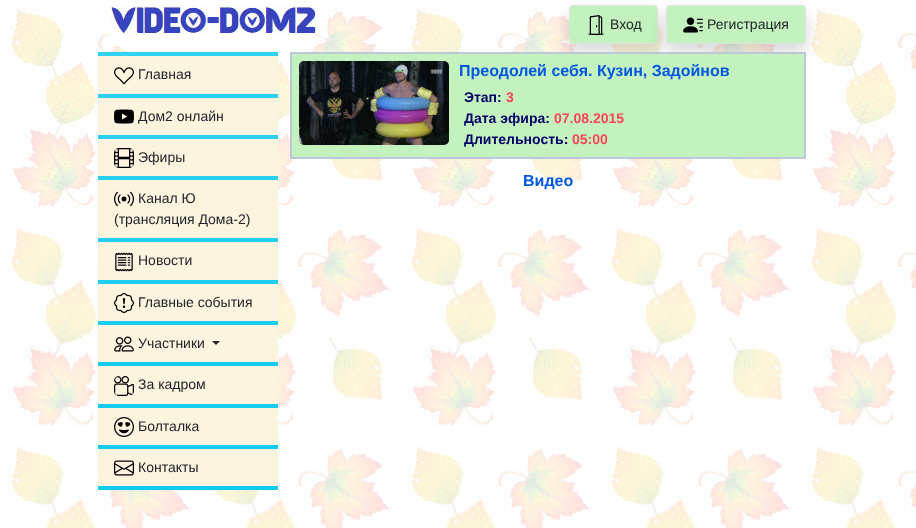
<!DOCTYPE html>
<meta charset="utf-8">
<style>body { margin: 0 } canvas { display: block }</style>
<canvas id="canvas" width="916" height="528"></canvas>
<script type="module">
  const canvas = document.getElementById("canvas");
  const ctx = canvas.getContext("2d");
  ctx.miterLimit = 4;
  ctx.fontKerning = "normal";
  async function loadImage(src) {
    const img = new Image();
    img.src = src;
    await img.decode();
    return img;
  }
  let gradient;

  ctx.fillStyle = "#ffffff";
  ctx.fillRect(0, 0, 916, 528);
  ctx.drawImage(await loadImage("img1.png"), 8, 8, 908, 520);
  ctx.beginPath();
  ctx.roundRect(110, 5, 206, 47, 23.5);
  ctx.fill();
  ctx.drawImage(await loadImage("img2.png"), 110, 5, 206, 30);
  ctx.fillStyle = "rgba(0, 0, 0, 0.15)";
  ctx.filter = "blur(8px)";
  ctx.beginPath();
  ctx.roundRect(569, 13, 89, 39, 4);
  ctx.fill();
  ctx.filter = "none";
  ctx.beginPath();
  ctx.roundRect(569.5, 5.5, 88, 38, 3.5);
  ctx.strokeStyle = "#dee2e6";
  ctx.stroke();
  ctx.fillStyle = "#c4f2bf";
  ctx.fillRect(570, 6, 87, 37);
  ctx.drawImage(await loadImage("img3.png"), 587, 15, 18, 20);
  ctx.font = "14px Liberation Sans";
  ctx.fillStyle = "#212529";
  ctx.fillText("Вход", 610, 29);
  ctx.fillStyle = "rgba(0, 0, 0, 0.15)";
  ctx.filter = "blur(8px)";
  ctx.beginPath();
  ctx.roundRect(666, 13, 140, 39, 4);
  ctx.fill();
  ctx.filter = "none";
  ctx.beginPath();
  ctx.roundRect(666.5, 5.5, 139, 38, 3.5);
  ctx.stroke();
  ctx.fillStyle = "#c4f2bf";
  ctx.fillRect(667, 6, 138, 37);
  ctx.drawImage(await loadImage("img4.png"), 683, 17, 20, 16);
  ctx.fillStyle = "#212529";
  ctx.fillText("Регистрация", 707, 29);
  gradient = ctx.createLinearGradient(188, 52, 188, 490);
  gradient.addColorStop(0, "#31d2f2");
  gradient.addColorStop(1, "#0dcaf0");
  ctx.fillStyle = gradient;
  ctx.fillRect(98, 52, 180, 438);
  ctx.fillStyle = "#fdf4e0";
  ctx.fillRect(98, 56, 180, 38);
  ctx.drawImage(await loadImage("img5.png"), 114, 67, 20, 18);
  ctx.fillStyle = "#212529";
  ctx.fillText("Главная", 138, 79);
  ctx.fillStyle = "#fdf4e0";
  ctx.fillRect(98, 98, 180, 37);
  ctx.drawImage(await loadImage("img6.png"), 114, 109, 20, 15);
  ctx.fillStyle = "#212529";
  ctx.fillText("Дом2 онлайн", 138, 121);
  ctx.fillStyle = "#fdf4e0";
  ctx.fillRect(98, 139, 180, 37);
  ctx.drawImage(await loadImage("img7.png"), 114, 148, 20, 20);
  ctx.fillStyle = "#212529";
  ctx.fillText("Эфиры", 138, 162);
  ctx.fillStyle = "#fdf4e0";
  ctx.fillRect(98, 180, 180, 58);
  ctx.drawImage(await loadImage("img8.png"), 114, 191, 20, 16);
  ctx.fillStyle = "#212529";
  ctx.fillText("Канал Ю", 138, 203);
  ctx.fillText("(трансляция Дома-2)", 114, 224);
  ctx.fillStyle = "#fdf4e0";
  ctx.fillRect(98, 242, 180, 38);
  ctx.drawImage(await loadImage("img9.png"), 115, 252, 18, 20);
  ctx.fillStyle = "#212529";
  ctx.fillText("Новости", 138, 265);
  ctx.fillStyle = "#fdf4e0";
  ctx.fillRect(98, 284, 180, 37);
  ctx.drawImage(await loadImage("img10.png"), 114, 293, 20, 20);
  ctx.fillStyle = "#212529";
  ctx.fillText("Главные события", 138, 307);
  ctx.fillStyle = "#fdf4e0";
  ctx.fillRect(98, 325, 180, 37);
  ctx.drawImage(await loadImage("img11.png"), 114, 336, 20, 16);
  ctx.fillStyle = "#212529";
  ctx.fillText("Участники", 138, 348);
  ctx.beginPath();
  ctx.moveTo(212, 341);
  ctx.lineTo(220, 341);
  ctx.lineTo(216, 345);
  ctx.closePath();
  ctx.fill();
  ctx.fillStyle = "#fdf4e0";
  ctx.fillRect(98, 366, 180, 38);
  ctx.drawImage(await loadImage("img12.png"), 114, 376, 20, 20);
  ctx.fillStyle = "#212529";
  ctx.fillText("За кадром", 138, 389);
  ctx.fillStyle = "#fdf4e0";
  ctx.fillRect(98, 408, 180, 37);
  ctx.drawImage(await loadImage("img13.png"), 114, 417, 20, 20);
  ctx.fillStyle = "#212529";
  ctx.fillText("Болталка", 138, 431);
  ctx.fillStyle = "#fdf4e0";
  ctx.fillRect(98, 449, 180, 37);
  ctx.drawImage(await loadImage("img14.png"), 114, 460, 20, 16);
  ctx.fillStyle = "#212529";
  ctx.fillText("Контакты", 138, 472);
  ctx.fillStyle = "#c4f2bf";
  ctx.beginPath();
  ctx.rect(291, 53, 514, 105);
  ctx.fill();
  ctx.strokeStyle = "#bcc7da";
  ctx.lineWidth = 2;
  ctx.stroke();
  ctx.drawImage(await loadImage("img15.png"), 299, 61, 150, 84);
  ctx.font = "bold 16px Liberation Sans";
  ctx.fillStyle = "#0457e2";
  ctx.fillText("Преодолей себя. Кузин, Задойнов", 459, 76);
  ctx.font = "bold 14px Liberation Sans";
  ctx.fillStyle = "#000066";
  ctx.fillText("Этап:", 464, 102);
  ctx.fillStyle = "#fa4455";
  ctx.fillText("3", 506, 102);
  ctx.fillStyle = "#000066";
  ctx.fillText("Дата эфира:", 464, 123);
  ctx.fillStyle = "#fa4455";
  ctx.fillText("07.08.2015", 554, 123);
  ctx.fillStyle = "#000066";
  ctx.fillText("Длительность:", 464, 144);
  ctx.fillStyle = "#fa4455";
  ctx.fillText("05:00", 572, 144);
  ctx.font = "bold 16px Liberation Sans";
  ctx.fillStyle = "#0457e2";
  ctx.fillText("Видео", 523, 186);
</script>
